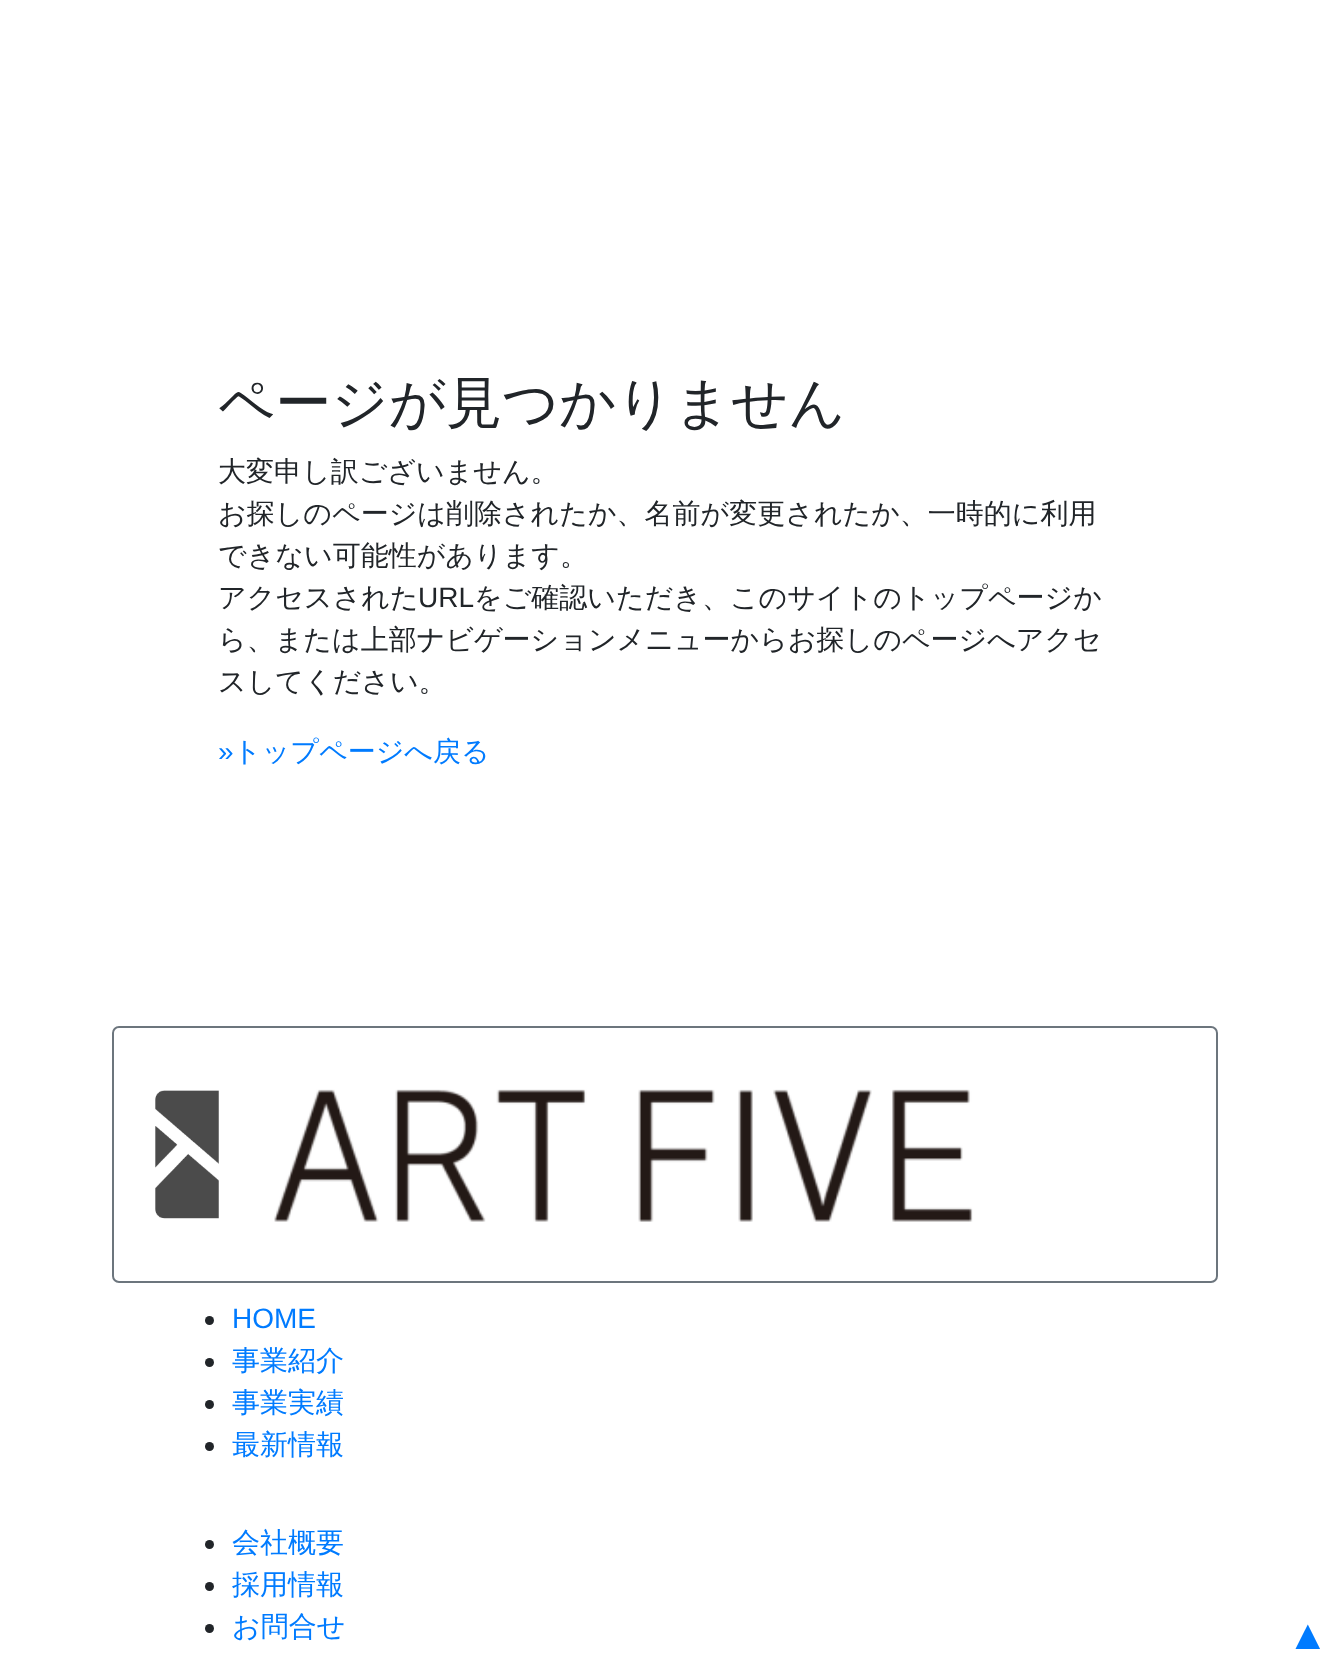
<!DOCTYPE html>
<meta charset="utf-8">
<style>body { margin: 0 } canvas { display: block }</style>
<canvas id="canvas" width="1327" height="1665"></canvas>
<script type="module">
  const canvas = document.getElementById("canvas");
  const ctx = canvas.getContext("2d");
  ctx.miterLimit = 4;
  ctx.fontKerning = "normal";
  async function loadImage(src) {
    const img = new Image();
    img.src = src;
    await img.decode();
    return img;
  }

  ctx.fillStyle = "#ffffff";
  ctx.fillRect(0, 0, 1327, 1665);
  ctx.font = "500 56px WenQuanYi Zen Hei";
  ctx.fillStyle = "#212529";
  ctx.fillText("ページが見つかりません", 218, 422);
  ctx.font = "500 28px WenQuanYi Zen Hei";
  ctx.fillText("大変申し訳ございません。", 218, 481);
  ctx.fillText("お探しのページは削除されたか、名前が変更されたか、一時的に利用", 218, 523);
  ctx.fillText("できない可能性があります。", 218, 565);
  ctx.fillText("アクセスされた", 218, 607);
  ctx.font = "28px Liberation Sans";
  ctx.fillText("URL", 418, 607);
  ctx.font = "500 28px WenQuanYi Zen Hei";
  ctx.fillText("をご確認いただき、このサイトのトップページか", 474, 607);
  ctx.fillText("ら、または上部ナビゲーションメニューからお探しのページへアクセ", 218, 649);
  ctx.fillText("スしてください。", 218, 691);
  ctx.font = "28px Liberation Sans";
  ctx.fillStyle = "#007bff";
  ctx.fillText("»", 218, 761);
  ctx.font = "500 28px WenQuanYi Zen Hei";
  ctx.fillText("トップページへ戻る", 233, 761);
  ctx.beginPath();
  ctx.roundRect(113, 1027, 1104, 255, 6);
  ctx.strokeStyle = "#6c757d";
  ctx.lineWidth = 2;
  ctx.stroke();
  ctx.drawImage(await loadImage("img1.png"), 155, 1090, 64, 129);
  ctx.drawImage(await loadImage("img2.png"), 218, 1089, 755, 133);
  ctx.fillStyle = "#212529";
  ctx.beginPath();
  ctx.arc(209.5, 1320.5, 4.5, 0, Math.PI * 2);
  ctx.fill();
  ctx.font = "28px Liberation Sans";
  ctx.fillStyle = "#007bff";
  ctx.fillText("HOME", 232, 1328);
  ctx.fillStyle = "#212529";
  ctx.beginPath();
  ctx.arc(209.5, 1362.5, 4.5, 0, Math.PI * 2);
  ctx.fill();
  ctx.font = "500 28px WenQuanYi Zen Hei";
  ctx.fillStyle = "#007bff";
  ctx.fillText("事業紹介", 232, 1370);
  ctx.fillStyle = "#212529";
  ctx.beginPath();
  ctx.arc(209.5, 1404.5, 4.5, 0, Math.PI * 2);
  ctx.fill();
  ctx.fillStyle = "#007bff";
  ctx.fillText("事業実績", 232, 1412);
  ctx.fillStyle = "#212529";
  ctx.beginPath();
  ctx.arc(209.5, 1446.5, 4.5, 0, Math.PI * 2);
  ctx.fill();
  ctx.fillStyle = "#007bff";
  ctx.fillText("最新情報", 232, 1454);
  ctx.fillStyle = "#212529";
  ctx.beginPath();
  ctx.arc(209.5, 1544.5, 4.5, 0, Math.PI * 2);
  ctx.fill();
  ctx.fillStyle = "#007bff";
  ctx.fillText("会社概要", 232, 1552);
  ctx.fillStyle = "#212529";
  ctx.beginPath();
  ctx.arc(209.5, 1586.5, 4.5, 0, Math.PI * 2);
  ctx.fill();
  ctx.fillStyle = "#007bff";
  ctx.fillText("採用情報", 232, 1594);
  ctx.fillStyle = "#212529";
  ctx.beginPath();
  ctx.arc(209.5, 1628.5, 4.5, 0, Math.PI * 2);
  ctx.fill();
  ctx.fillStyle = "#007bff";
  ctx.fillText("お問合せ", 232, 1636);
  ctx.font = "42px Liberation Sans";
  ctx.fillText("▲", 1287, 1649);
</script>
